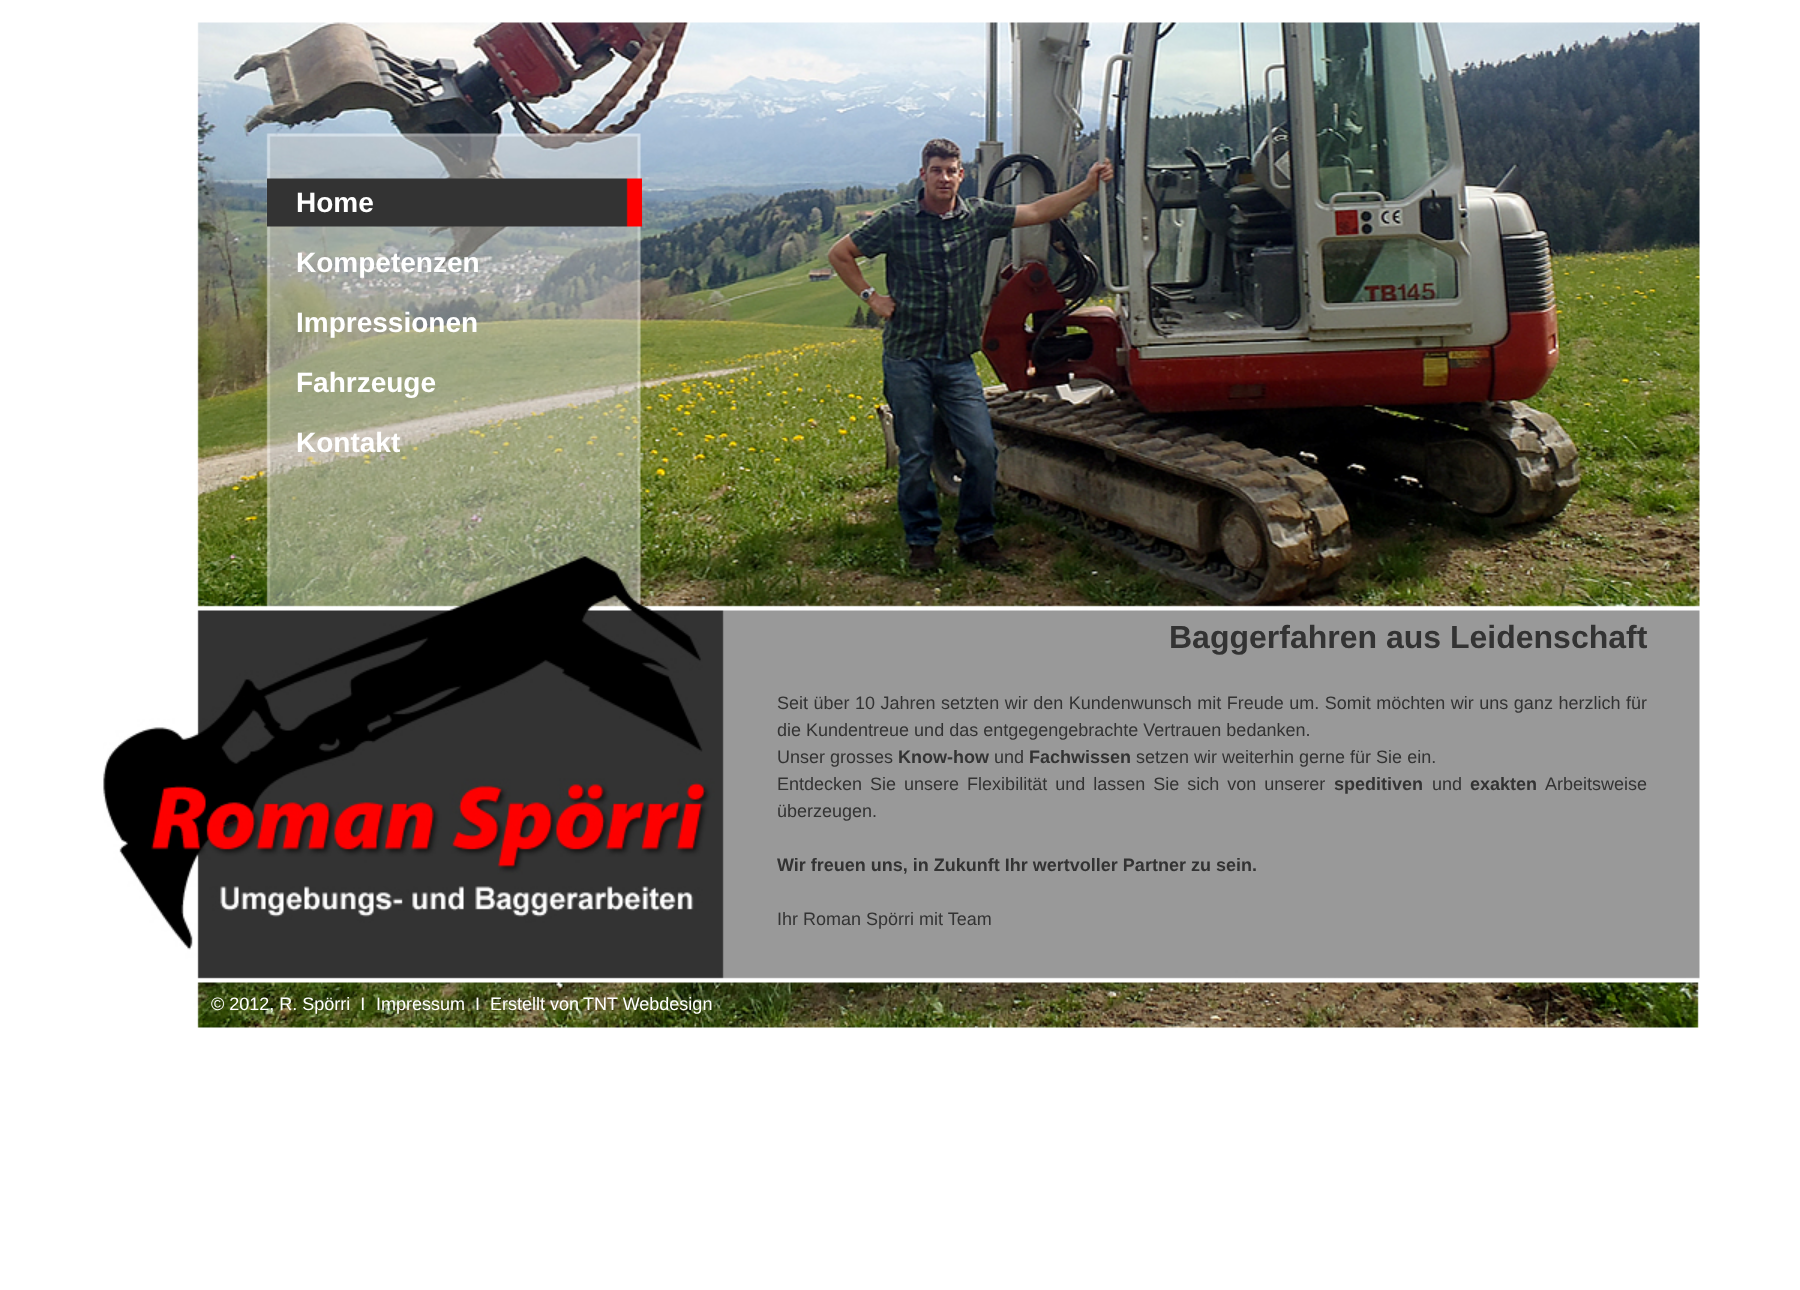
<!DOCTYPE html>
<meta charset="utf-8">
<style>body { margin: 0 } canvas { display: block }</style>
<canvas id="canvas" width="1800" height="1290"></canvas>
<script type="module">
  const canvas = document.getElementById("canvas");
  const ctx = canvas.getContext("2d");
  ctx.miterLimit = 4;
  ctx.fontKerning = "normal";
  async function loadImage(src) {
    const img = new Image();
    img.src = src;
    await img.decode();
    return img;
  }

  ctx.fillStyle = "#ffffff";
  ctx.fillRect(0, 0, 1800, 1290);
  ctx.drawImage(await loadImage("img1.png"), 103, 22, 1597, 1006);
  ctx.drawImage(await loadImage("img2.png"), 267, 178, 375, 49);
  ctx.font = "bold 28px Liberation Sans";
  ctx.fillText("Home", 296, 212);
  ctx.fillText("Kompetenzen", 296, 272);
  ctx.fillText("Impressionen", 296, 332);
  ctx.fillText("Fahrzeuge", 296, 392);
  ctx.fillText("Kontakt", 296, 452);
  ctx.font = "bold 32px Liberation Sans";
  ctx.fillStyle = "#333333";
  ctx.fillText("Baggerfahren aus Leidenschaft", 1169, 648);
  ctx.wordSpacing = "0.5px";
  ctx.font = "18px Liberation Sans";
  ctx.fillText("Seit über 10 Jahren setzten wir den Kundenwunsch mit Freude um. Somit möchten wir uns ganz herzlich für", 777, 709);
  ctx.wordSpacing = "0px";
  ctx.fillText("die Kundentreue und das entgegengebrachte Vertrauen bedanken.", 777, 736);
  ctx.fillText("Unser grosses", 777, 763);
  ctx.font = "bold 18px Liberation Sans";
  ctx.fillText("Know-how", 898, 763);
  ctx.font = "18px Liberation Sans";
  ctx.fillText("und", 994, 763);
  ctx.font = "bold 18px Liberation Sans";
  ctx.fillText("Fachwissen", 1029, 763);
  ctx.font = "18px Liberation Sans";
  ctx.fillText("setzen wir weiterhin gerne für Sie ein.", 1136, 763);
  ctx.wordSpacing = "3px";
  ctx.fillText("Entdecken Sie unsere Flexibilität und lassen Sie sich von unserer", 777, 790);
  ctx.wordSpacing = "0px";
  ctx.font = "bold 18px Liberation Sans";
  ctx.fillText("speditiven", 1334, 790);
  ctx.font = "18px Liberation Sans";
  ctx.fillText("und", 1432, 790);
  ctx.font = "bold 18px Liberation Sans";
  ctx.fillText("exakten", 1470, 790);
  ctx.font = "18px Liberation Sans";
  ctx.fillText("Arbeitsweise", 1545, 790);
  ctx.fillText("überzeugen.", 777, 817);
  ctx.font = "bold 18px Liberation Sans";
  ctx.fillText("Wir freuen uns, in Zukunft Ihr wertvoller Partner zu sein.", 777, 871);
  ctx.font = "18px Liberation Sans";
  ctx.fillText("Ihr Roman Spörri mit Team", 777, 925);
  ctx.fillStyle = "#ffffff";
  ctx.fillText("© 2012, R. Spörri  I", 211, 1010);
  ctx.fillText("Impressum", 376, 1010);
  ctx.fillText("I  Erstellt von", 475, 1010);
  ctx.fillText("TNT Webdesign", 583, 1010);
</script>
